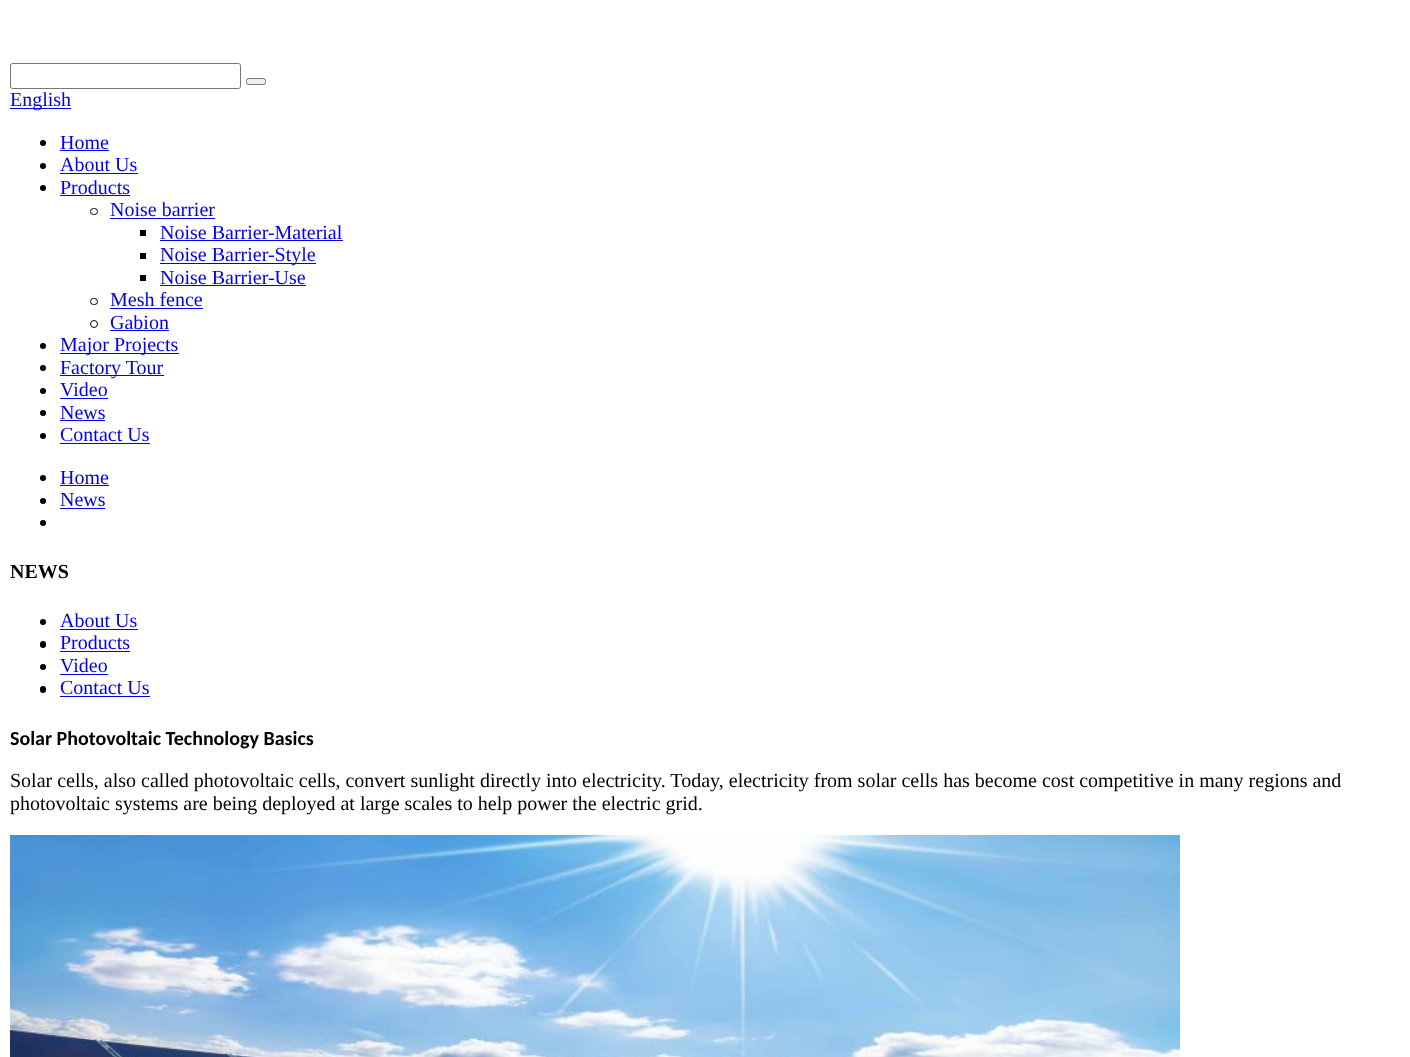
<!DOCTYPE html>
<meta charset="utf-8">
<style>body { margin: 0 } canvas { display: block }</style>
<canvas id="canvas" width="1410" height="1057"></canvas>
<script type="module">
  const canvas = document.getElementById("canvas");
  const ctx = canvas.getContext("2d");
  ctx.miterLimit = 4;
  ctx.fontKerning = "normal";
  async function loadImage(src) {
    const img = new Image();
    img.src = src;
    await img.decode();
    return img;
  }

  ctx.fillStyle = "#ffffff";
  ctx.fillRect(0, 0, 1410, 1057);
  ctx.beginPath();
  ctx.roundRect(10.5, 63.5, 230, 25, 2);
  ctx.strokeStyle = "#767676";
  ctx.stroke();
  ctx.fillStyle = "#efefef";
  ctx.beginPath();
  ctx.roundRect(246.5, 78.5, 19, 6, 2);
  ctx.fill();
  ctx.stroke();
  ctx.fillStyle = "#0000ee";
  ctx.fillRect(10, 108, 61, 1);
  ctx.font = "20px Liberation Serif";
  ctx.fillText("English", 10, 106);
  ctx.fillStyle = "#000000";
  ctx.beginPath();
  ctx.arc(43, 143, 3, 0, Math.PI * 2);
  ctx.fill();
  ctx.fillStyle = "#0000ee";
  ctx.fillText("Home", 60, 149);
  ctx.fillRect(60, 150, 49, 1);
  ctx.fillStyle = "#000000";
  ctx.beginPath();
  ctx.arc(43, 166, 3, 0, Math.PI * 2);
  ctx.fill();
  ctx.fillStyle = "#0000ee";
  ctx.fillText("About Us", 60, 171);
  ctx.fillRect(60, 173, 78, 1);
  ctx.fillStyle = "#000000";
  ctx.beginPath();
  ctx.arc(43, 188, 3, 0, Math.PI * 2);
  ctx.fill();
  ctx.fillStyle = "#0000ee";
  ctx.fillText("Products", 60, 194);
  ctx.fillRect(60, 195, 70, 1);
  ctx.beginPath();
  ctx.roundRect(90.5, 208.5, 7, 6, 3);
  ctx.strokeStyle = "#000000";
  ctx.stroke();
  ctx.fillText("Noise barrier", 110, 216);
  ctx.fillRect(110, 218, 105, 1);
  ctx.fillStyle = "#000000";
  ctx.fillRect(140, 230, 6, 6);
  ctx.fillStyle = "#0000ee";
  ctx.fillText("Noise Barrier-Material", 160, 239);
  ctx.fillRect(160, 240, 183, 1);
  ctx.fillStyle = "#000000";
  ctx.fillRect(140, 253, 6, 6);
  ctx.fillStyle = "#0000ee";
  ctx.fillRect(160, 263, 156, 1);
  ctx.fillText("Noise Barrier-Style", 160, 261);
  ctx.fillStyle = "#000000";
  ctx.fillRect(140, 275, 6, 6);
  ctx.fillStyle = "#0000ee";
  ctx.fillText("Noise Barrier-Use", 160, 284);
  ctx.fillRect(160, 285, 146, 1);
  ctx.beginPath();
  ctx.roundRect(90.5, 298.5, 7, 6, 3);
  ctx.stroke();
  ctx.fillText("Mesh fence", 110, 306);
  ctx.fillRect(110, 308, 93, 1);
  ctx.beginPath();
  ctx.arc(94, 324, 3.5, 0, Math.PI * 2);
  ctx.stroke();
  ctx.fillText("Gabion", 110, 329);
  ctx.fillRect(110, 330, 59, 1);
  ctx.fillStyle = "#000000";
  ctx.beginPath();
  ctx.arc(43, 346, 3, 0, Math.PI * 2);
  ctx.fill();
  ctx.fillStyle = "#0000ee";
  ctx.fillRect(60, 353, 119, 1);
  ctx.fillText("Major Projects", 60, 351);
  ctx.fillStyle = "#000000";
  ctx.beginPath();
  ctx.arc(43, 368, 3, 0, Math.PI * 2);
  ctx.fill();
  ctx.fillStyle = "#0000ee";
  ctx.fillRect(60, 375, 104, 1);
  ctx.fillText("Factory Tour", 60, 374);
  ctx.fillStyle = "#000000";
  ctx.beginPath();
  ctx.arc(43, 391, 3, 0, Math.PI * 2);
  ctx.fill();
  ctx.fillStyle = "#0000ee";
  ctx.fillText("Video", 60, 396);
  ctx.fillRect(60, 398, 48, 1);
  ctx.fillStyle = "#000000";
  ctx.beginPath();
  ctx.arc(43, 413, 3, 0, Math.PI * 2);
  ctx.fill();
  ctx.fillStyle = "#0000ee";
  ctx.fillText("News", 60, 419);
  ctx.fillRect(60, 420, 45, 1);
  ctx.fillStyle = "#000000";
  ctx.beginPath();
  ctx.arc(43, 436, 3, 0, Math.PI * 2);
  ctx.fill();
  ctx.fillStyle = "#0000ee";
  ctx.fillText("Contact Us", 60, 441);
  ctx.fillRect(60, 443, 90, 1);
  ctx.fillStyle = "#000000";
  ctx.beginPath();
  ctx.arc(43, 478, 3, 0, Math.PI * 2);
  ctx.fill();
  ctx.fillStyle = "#0000ee";
  ctx.fillText("Home", 60, 484);
  ctx.fillRect(60, 485, 49, 1);
  ctx.fillStyle = "#000000";
  ctx.beginPath();
  ctx.arc(43, 501, 3, 0, Math.PI * 2);
  ctx.fill();
  ctx.fillStyle = "#0000ee";
  ctx.fillText("News", 60, 506);
  ctx.fillRect(60, 508, 45, 1);
  ctx.fillStyle = "#000000";
  ctx.beginPath();
  ctx.arc(43, 523, 3, 0, Math.PI * 2);
  ctx.fill();
  ctx.font = "bold 20px Liberation Serif";
  ctx.fillText("NEWS", 10, 578);
  ctx.beginPath();
  ctx.arc(43, 622, 3, 0, Math.PI * 2);
  ctx.fill();
  ctx.font = "20px Liberation Serif";
  ctx.fillStyle = "#0000ee";
  ctx.fillText("About Us", 60, 627);
  ctx.fillRect(60, 629, 78, 1);
  ctx.fillStyle = "#000000";
  ctx.beginPath();
  ctx.roundRect(40, 641, 6, 7, 3);
  ctx.fill();
  ctx.fillStyle = "#0000ee";
  ctx.fillText("Products", 60, 649);
  ctx.fillRect(60, 651, 70, 1);
  ctx.fillStyle = "#000000";
  ctx.beginPath();
  ctx.arc(43, 667, 3, 0, Math.PI * 2);
  ctx.fill();
  ctx.fillStyle = "#0000ee";
  ctx.fillText("Video", 60, 672);
  ctx.fillRect(60, 674, 48, 1);
  ctx.fillStyle = "#000000";
  ctx.beginPath();
  ctx.roundRect(40, 686, 6, 7, 3);
  ctx.fill();
  ctx.fillStyle = "#0000ee";
  ctx.fillText("Contact Us", 60, 694);
  ctx.fillRect(60, 696, 90, 1);
  ctx.font = "bold 20px Carlito";
  ctx.fillStyle = "#000000";
  ctx.fillText("Solar Photovoltaic Technology Basics", 10, 745);
  ctx.font = "20px Liberation Serif";
  ctx.fillText("Solar cells, also called photovoltaic cells, convert sunlight directly into electricity. Today, electricity from solar cells has become cost competitive in many regions and", 10, 787);
  ctx.fillText("photovoltaic systems are being deployed at large scales to help power the electric grid.", 10, 810);
  ctx.drawImage(await loadImage("img1.png"), 10, 835, 1170, 222);
</script>
